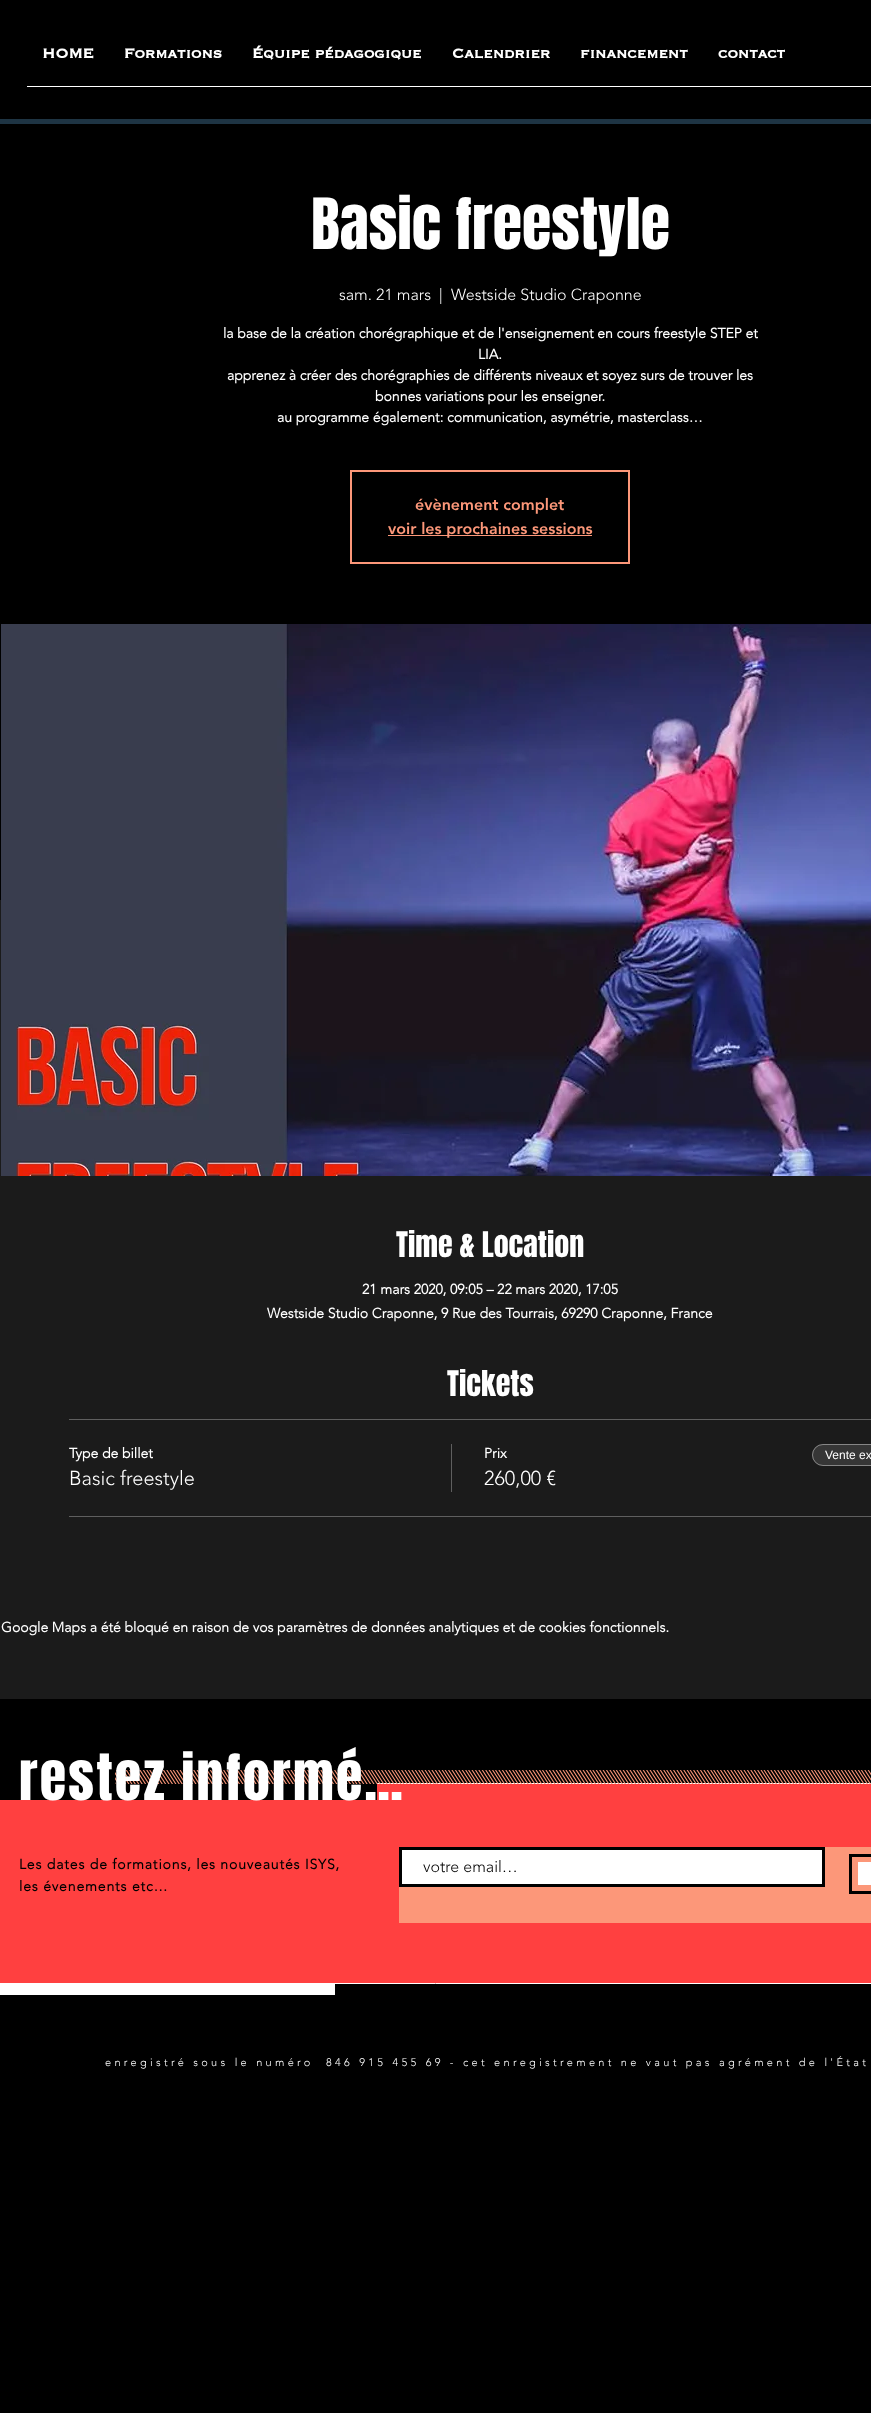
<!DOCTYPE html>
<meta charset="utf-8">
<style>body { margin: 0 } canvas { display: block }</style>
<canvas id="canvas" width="871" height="2413"></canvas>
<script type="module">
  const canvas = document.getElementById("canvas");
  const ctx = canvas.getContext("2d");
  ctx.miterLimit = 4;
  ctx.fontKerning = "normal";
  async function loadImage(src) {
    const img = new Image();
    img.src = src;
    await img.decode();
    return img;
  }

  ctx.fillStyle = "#000000";
  ctx.fillRect(0, 0, 871, 2413);
  ctx.font = "bold 17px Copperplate";
  ctx.fillStyle = "#ffffff";
  ctx.fillText("HOME", 42, 58);
  ctx.fillText("Formations", 124, 58);
  ctx.fillText("Équipe pédagogique", 252, 58);
  ctx.fillText("Calendrier", 452, 58);
  ctx.fillText("financement", 580, 58);
  ctx.fillText("contact", 718, 58);
  ctx.fillRect(27, 86, 844, 1);
  ctx.fillStyle = "#1e3443";
  ctx.fillRect(0, 119, 871, 5);
  ctx.font = "60px Anton";
  ctx.fillStyle = "#ffffff";
  ctx.fillText("Basic freestyle", 311, 249);
  ctx.font = "300 16px 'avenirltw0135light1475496'";
  ctx.fillText("sam. 21 mars", 339, 300);
  ctx.fillText("|", 439, 300);
  ctx.fillText("Westside Studio Craponne", 451, 300);
  ctx.font = "bold 14px 'avenirltw0135light1475496'";
  ctx.fillText("la base de la création chorégraphique et de l'enseignement en cours freestyle STEP et", 223, 338);
  ctx.fillText("LIA.", 478, 359);
  ctx.fillText("apprenez à créer des chorégraphies de différents niveaux et soyez surs de trouver les", 227, 380);
  ctx.fillText("bonnes variations pour les enseigner.", 375, 401);
  ctx.fillText("au programme également: communication, asymétrie, masterclass…", 277, 422);
  ctx.strokeStyle = "#fc9779";
  ctx.lineWidth = 2;
  ctx.strokeRect(351, 471, 278, 92);
  ctx.font = "900 16px 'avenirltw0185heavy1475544'";
  ctx.fillStyle = "#fc9779";
  ctx.fillText("évènement complet", 415, 510);
  ctx.fillRect(388, 535, 204, 1);
  ctx.fillText("voir les prochaines sessions", 388, 534);
  ctx.fillStyle = "#1b1b1b";
  ctx.fillRect(0, 900, 871, 799);
  ctx.drawImage(await loadImage("img1.png"), 1, 624, 870, 552);
  ctx.font = "30px Anton";
  ctx.fillStyle = "#ffffff";
  ctx.fillText("Time & Location", 396, 1257);
  ctx.font = "bold 14px 'avenirltw0135light1475496'";
  ctx.fillText("21 mars 2020, 09:05 – 22 mars 2020, 17:05", 362, 1294);
  ctx.fillText("Westside Studio Craponne, 9 Rue des Tourrais, 69290 Craponne, France", 267, 1318);
  ctx.font = "30px Anton";
  ctx.fillText("Tickets", 447, 1396);
  ctx.fillStyle = "#5f5f5f";
  ctx.fillRect(69, 1419, 802, 1);
  ctx.fillRect(69, 1516, 802, 1);
  ctx.font = "bold 14px 'avenirltw0135light1475496'";
  ctx.fillStyle = "#ffffff";
  ctx.fillText("Type de billet", 69, 1458);
  ctx.font = "300 20px 'avenirltw0135light1475496'";
  ctx.fillText("Basic freestyle", 69, 1485);
  ctx.fillStyle = "#5f5f5f";
  ctx.fillRect(451, 1444, 1, 48);
  ctx.font = "bold 14px 'avenirltw0135light1475496'";
  ctx.fillStyle = "#ffffff";
  ctx.fillText("Prix", 484, 1458);
  ctx.font = "300 20px 'avenirltw0135light1475496'";
  ctx.fillText("260,00 €", 484, 1485);
  ctx.fillStyle = "#363636";
  ctx.beginPath();
  ctx.roundRect(812, 1444, 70, 22, 11);
  ctx.fill();
  ctx.beginPath();
  ctx.roundRect(812.5, 1444.5, 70, 21, 10.5);
  ctx.strokeStyle = "rgba(255, 255, 255, 0.4)";
  ctx.lineWidth = 1;
  ctx.stroke();
  ctx.font = "12px Liberation Sans";
  ctx.fillStyle = "#ffffff";
  ctx.fillText("Vente ex", 825, 1459);
  ctx.font = "bold 14px 'avenirltw0135light1475496'";
  ctx.fillText("Google Maps a été bloqué en raison de vos paramètres de données analytiques et de cookies fonctionnels.", 1, 1632);
  ctx.fillStyle = "#ff4040";
  ctx.beginPath();
  ctx.rect(-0.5, 1783.5, 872, 200);
  ctx.fill();
  ctx.strokeStyle = "#ffffff";
  ctx.stroke();
  ctx.fillStyle = "#000000";
  ctx.fillRect(0, 1783, 377, 17);
  ctx.drawImage(await loadImage("img2.png"), 115, 1770, 756, 14);
  ctx.letterSpacing = "2.2px";
  ctx.font = "54px Anton";
  ctx.fillStyle = "#ffffff";
  ctx.fillText("restez informé…", 19, 1800);
  ctx.letterSpacing = "0.85px";
  ctx.font = "bold 14px 'avenirltw0135light1475496'";
  ctx.fillStyle = "#000000";
  ctx.fillText("Les dates de formations, les nouveautés ISYS,", 19, 1869);
  ctx.fillText("les évenements etc…", 19, 1891);
  ctx.fillStyle = "#fc9779";
  ctx.fillRect(399, 1847, 472, 76);
  ctx.fillStyle = "#ffffff";
  ctx.beginPath();
  ctx.rect(400.5, 1848.5, 423, 37);
  ctx.fill();
  ctx.strokeStyle = "#000000";
  ctx.lineWidth = 3;
  ctx.stroke();
  ctx.letterSpacing = "0px";
  ctx.font = "300 16px 'avenirltw0135light1475496'";
  ctx.fillStyle = "#000000";
  ctx.fillText("votre email…", 423, 1872);
  ctx.fillStyle = "#ffffff";
  ctx.fillRect(858, 1862, 13, 23);
  ctx.strokeRect(850.5, 1855.5, 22, 37);
  ctx.fillRect(0, 1984, 335, 11);
  ctx.letterSpacing = "3.3px";
  ctx.font = "300 11px 'avenirltw0135light1475496'";
  ctx.fillText("enregistré sous le numéro  846 915 455 69 - cet enregistrement ne vaut pas agrément de l'État", 105, 2066);
</script>
